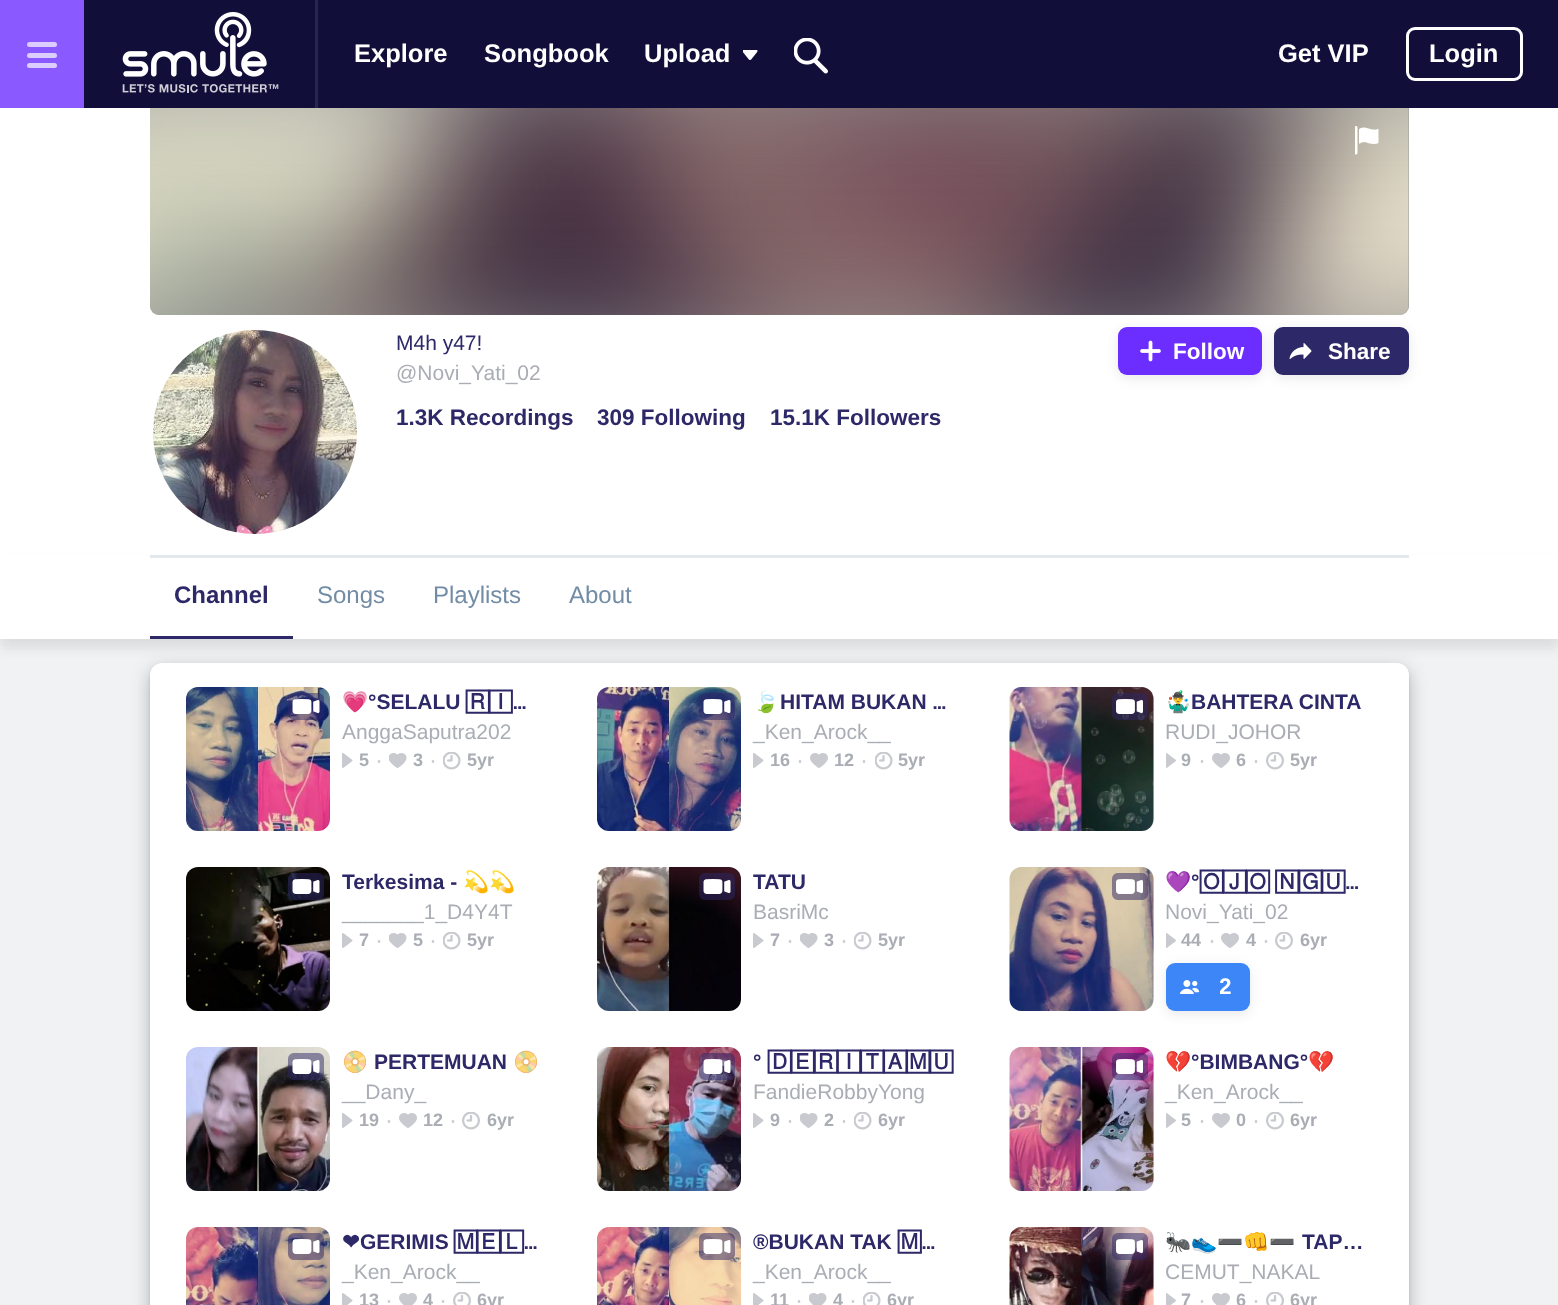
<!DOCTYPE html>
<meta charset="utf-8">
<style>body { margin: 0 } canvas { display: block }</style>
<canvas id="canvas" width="1558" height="1305"></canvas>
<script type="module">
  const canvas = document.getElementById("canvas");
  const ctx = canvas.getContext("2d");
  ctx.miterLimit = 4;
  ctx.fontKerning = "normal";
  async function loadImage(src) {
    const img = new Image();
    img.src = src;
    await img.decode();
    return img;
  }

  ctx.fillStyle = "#f0f2f4";
  ctx.fillRect(0, 0, 1558, 1305);
  ctx.fillStyle = "#110e39";
  ctx.fillRect(84, 0, 1474, 108);
  ctx.fillStyle = "#8a59ff";
  ctx.fillRect(0, 0, 84, 108);
  ctx.fillStyle = "#dccdff";
  ctx.beginPath();
  ctx.roundRect(27, 53, 30, 5, 2.5);
  ctx.fill();
  ctx.beginPath();
  ctx.roundRect(27, 42, 30, 5, 2.5);
  ctx.fill();
  ctx.beginPath();
  ctx.roundRect(27, 63, 30, 5, 2.5);
  ctx.fill();
  ctx.drawImage(await loadImage("img1.png"), 122, 12, 157, 81);
  ctx.fillStyle = "#29264d";
  ctx.fillRect(315, 0, 3, 108);
  ctx.font = "bold 25.5px Liberation Sans";
  ctx.fillStyle = "#ffffff";
  ctx.fillText("Explore", 354, 62);
  ctx.fillText("Songbook", 484, 62);
  ctx.fillText("Upload", 644, 62);
  ctx.drawImage(await loadImage("img2.png"), 743, 50, 15, 10);
  ctx.drawImage(await loadImage("img3.png"), 794, 38, 34, 36);
  ctx.fillText("Get VIP", 1278, 62);
  ctx.beginPath();
  ctx.roundRect(1407.5, 28.5, 114, 51, 7.5);
  ctx.strokeStyle = "#ffffff";
  ctx.lineWidth = 3;
  ctx.stroke();
  ctx.fillText("Login", 1429, 62);
  ctx.fillRect(0, 108, 1558, 447);
  ctx.fillStyle = "#999999";
  ctx.beginPath();
  ctx.roundRect(150, 108, 1259, 207, [0, 0, 9, 9]);
  ctx.fill();
  ctx.drawImage(await loadImage("img4.png"), 150, 108, 1259, 207);
  ctx.drawImage(await loadImage("img5.png"), 1355, 126, 24, 29);
  ctx.drawImage(await loadImage("img6.png"), 153, 330, 204, 204);
  ctx.font = "21px Liberation Sans";
  ctx.fillStyle = "#2d2867";
  ctx.fillText("M4h y47!", 396, 350);
  ctx.fillStyle = "#aaadb4";
  ctx.fillText("@Novi_Yati_02", 396, 380);
  ctx.font = "bold 22.5px Liberation Sans";
  ctx.fillStyle = "#2d2867";
  ctx.fillText("1.3K Recordings", 396, 425);
  ctx.fillText("309 Following", 597, 425);
  ctx.fillText("15.1K Followers", 770, 425);
  ctx.fillStyle = "rgba(31, 32, 33, 0.1)";
  ctx.filter = "blur(6px)";
  ctx.beginPath();
  ctx.roundRect(1118, 330, 144, 48, 9);
  ctx.fill();
  ctx.filter = "none";
  ctx.fillStyle = "#6c2eff";
  ctx.beginPath();
  ctx.roundRect(1118, 327, 144, 48, 9);
  ctx.fill();
  ctx.drawImage(await loadImage("img7.png"), 1140, 340, 21, 22);
  ctx.fillStyle = "#ffffff";
  ctx.fillText("Follow", 1173, 359);
  ctx.fillStyle = "rgba(31, 32, 33, 0.1)";
  ctx.filter = "blur(6px)";
  ctx.beginPath();
  ctx.roundRect(1274, 330, 135, 48, 9);
  ctx.fill();
  ctx.filter = "none";
  ctx.fillStyle = "#2d2867";
  ctx.beginPath();
  ctx.roundRect(1274, 327, 135, 48, 9);
  ctx.fill();
  ctx.drawImage(await loadImage("img8.png"), 1289, 343, 23, 16);
  ctx.fillStyle = "#ffffff";
  ctx.fillText("Share", 1328, 359);
  ctx.fillStyle = "rgba(31, 32, 33, 0.3)";
  ctx.filter = "blur(9px)";
  ctx.beginPath();
  ctx.roundRect(150, 669, 1259, 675, 12);
  ctx.fill();
  ctx.filter = "none";
  ctx.fillStyle = "rgba(31, 32, 33, 0.1)";
  ctx.filter = "blur(1.5px)";
  ctx.beginPath();
  ctx.roundRect(150, 665, 1259, 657, 12);
  ctx.fill();
  ctx.filter = "none";
  ctx.fillStyle = "#ffffff";
  ctx.beginPath();
  ctx.roundRect(150, 663, 1259, 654, 12);
  ctx.fill();
  ctx.fillStyle = "rgba(31, 32, 33, 0.1)";
  ctx.filter = "blur(6px)";
  ctx.beginPath();
  ctx.rect(0, 564, 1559, 84);
  ctx.fill();
  ctx.filter = "none";
  ctx.fillStyle = "#ffffff";
  ctx.fillRect(0, 555, 1558, 84);
  ctx.fillStyle = "#e4e9ee";
  ctx.fillRect(150, 555, 1259, 3);
  ctx.fillStyle = "#2d2867";
  ctx.fillRect(150, 636, 143, 3);
  ctx.font = "bold 24px Liberation Sans";
  ctx.fillText("Channel", 174, 603);
  ctx.font = "24px Liberation Sans";
  ctx.fillStyle = "#728ca6";
  ctx.fillText("Songs", 317, 603);
  ctx.fillText("Playlists", 433, 603);
  ctx.fillText("About", 569, 603);
  ctx.drawImage(await loadImage("img9.png"), 186, 687, 144, 144);
  ctx.drawImage(await loadImage("img10.png"), 288, 693, 36, 27);
  ctx.font = "bold 21px Noto Color Emoji";
  ctx.fillStyle = "#2d2867";
  ctx.fillText("💗", 342, 709);
  ctx.font = "bold 21px Liberation Sans";
  ctx.fillText("°SELALU", 368, 709);
  ctx.font = "bold 21px FreeSans";
  ctx.fillText("🅁🄸…", 466, 709);
  ctx.font = "21px Liberation Sans";
  ctx.fillStyle = "#aaadb4";
  ctx.fillText("AnggaSaputra202", 342, 739);
  ctx.drawImage(await loadImage("img11.png"), 342, 753, 11, 15);
  ctx.font = "bold 18px Liberation Sans";
  ctx.fillText("5", 359, 766);
  ctx.font = "24px Liberation Sans";
  ctx.fillStyle = "#c8cacf";
  ctx.fillText("·", 375, 768);
  ctx.drawImage(await loadImage("img12.png"), 389, 753, 18, 15);
  ctx.font = "bold 18px Liberation Sans";
  ctx.fillStyle = "#aaadb4";
  ctx.fillText("3", 413, 766);
  ctx.font = "24px Liberation Sans";
  ctx.fillStyle = "#c8cacf";
  ctx.fillText("·", 429, 768);
  ctx.drawImage(await loadImage("img13.png"), 443, 752, 18, 18);
  ctx.font = "bold 18px Liberation Sans";
  ctx.fillStyle = "#aaadb4";
  ctx.fillText("5yr", 467, 766);
  ctx.drawImage(await loadImage("img14.png"), 597, 687, 144, 144);
  ctx.drawImage(await loadImage("img15.png"), 699, 693, 36, 27);
  ctx.font = "bold 21px Noto Color Emoji";
  ctx.fillStyle = "#2d2867";
  ctx.fillText("🍃", 753, 709);
  ctx.font = "bold 21px Liberation Sans";
  ctx.fillText("HITAM BUKAN", 780, 709);
  ctx.font = "bold 21px FreeSans";
  ctx.fillText("…", 932, 709);
  ctx.font = "21px Liberation Sans";
  ctx.fillStyle = "#aaadb4";
  ctx.fillText("_Ken_Arock__", 753, 739);
  ctx.drawImage(await loadImage("img11.png"), 753, 753, 11, 15);
  ctx.font = "bold 18px Liberation Sans";
  ctx.fillText("16", 770, 766);
  ctx.font = "24px Liberation Sans";
  ctx.fillStyle = "#c8cacf";
  ctx.fillText("·", 796, 768);
  ctx.drawImage(await loadImage("img16.png"), 810, 753, 18, 15);
  ctx.font = "bold 18px Liberation Sans";
  ctx.fillStyle = "#aaadb4";
  ctx.fillText("12", 834, 766);
  ctx.font = "24px Liberation Sans";
  ctx.fillStyle = "#c8cacf";
  ctx.fillText("·", 860, 768);
  ctx.drawImage(await loadImage("img13.png"), 875, 752, 18, 18);
  ctx.font = "bold 18px Liberation Sans";
  ctx.fillStyle = "#aaadb4";
  ctx.fillText("5yr", 898, 766);
  ctx.fillStyle = "#f0f2f4";
  ctx.beginPath();
  ctx.roundRect(1010, 687, 144, 144, 12);
  ctx.fill();
  ctx.drawImage(await loadImage("img17.png"), 1009, 687, 145, 144);
  ctx.drawImage(await loadImage("img18.png"), 1112, 693, 36, 27);
  ctx.save();
  ctx.beginPath();
  ctx.rect(1166, 687, 202, 30);
  ctx.clip();
  ctx.font = "bold 21px Noto Color Emoji";
  ctx.fillStyle = "#2d2867";
  ctx.fillText("🤹‍♂️", 1165, 709);
  ctx.restore();
  ctx.font = "bold 21px Liberation Sans";
  ctx.fillStyle = "#2d2867";
  ctx.fillText("BAHTERA CINTA", 1191, 709);
  ctx.font = "21px Liberation Sans";
  ctx.fillStyle = "#aaadb4";
  ctx.fillText("RUDI_JOHOR", 1165, 739);
  ctx.drawImage(await loadImage("img19.png"), 1166, 753, 10, 15);
  ctx.font = "bold 18px Liberation Sans";
  ctx.fillText("9", 1181, 766);
  ctx.font = "24px Liberation Sans";
  ctx.fillStyle = "#c8cacf";
  ctx.fillText("·", 1198, 768);
  ctx.drawImage(await loadImage("img16.png"), 1212, 753, 18, 15);
  ctx.font = "bold 18px Liberation Sans";
  ctx.fillStyle = "#aaadb4";
  ctx.fillText("6", 1236, 766);
  ctx.font = "24px Liberation Sans";
  ctx.fillStyle = "#c8cacf";
  ctx.fillText("·", 1252, 768);
  ctx.drawImage(await loadImage("img20.png"), 1266, 752, 18, 18);
  ctx.font = "bold 18px Liberation Sans";
  ctx.fillStyle = "#aaadb4";
  ctx.fillText("5yr", 1290, 766);
  ctx.drawImage(await loadImage("img21.png"), 186, 867, 144, 144);
  ctx.drawImage(await loadImage("img22.png"), 288, 873, 36, 27);
  ctx.font = "bold 21px Liberation Sans";
  ctx.fillStyle = "#2d2867";
  ctx.fillText("Terkesima -", 342, 889);
  ctx.font = "bold 21px Noto Color Emoji";
  ctx.fillText("💫💫", 463, 889);
  ctx.font = "21px Liberation Sans";
  ctx.fillStyle = "#aaadb4";
  ctx.fillText("_______1_D4Y4T", 342, 919);
  ctx.drawImage(await loadImage("img11.png"), 342, 933, 11, 15);
  ctx.font = "bold 18px Liberation Sans";
  ctx.fillText("7", 359, 946);
  ctx.font = "24px Liberation Sans";
  ctx.fillStyle = "#c8cacf";
  ctx.fillText("·", 375, 948);
  ctx.drawImage(await loadImage("img12.png"), 389, 933, 18, 15);
  ctx.font = "bold 18px Liberation Sans";
  ctx.fillStyle = "#aaadb4";
  ctx.fillText("5", 413, 946);
  ctx.font = "24px Liberation Sans";
  ctx.fillStyle = "#c8cacf";
  ctx.fillText("·", 429, 948);
  ctx.drawImage(await loadImage("img13.png"), 443, 932, 18, 18);
  ctx.font = "bold 18px Liberation Sans";
  ctx.fillStyle = "#aaadb4";
  ctx.fillText("5yr", 467, 946);
  ctx.drawImage(await loadImage("img23.png"), 597, 867, 144, 144);
  ctx.drawImage(await loadImage("img24.png"), 699, 873, 36, 27);
  ctx.font = "bold 21px Liberation Sans";
  ctx.fillStyle = "#2d2867";
  ctx.fillText("TATU", 753, 889);
  ctx.font = "21px Liberation Sans";
  ctx.fillStyle = "#aaadb4";
  ctx.fillText("BasriMc", 753, 919);
  ctx.drawImage(await loadImage("img11.png"), 753, 933, 11, 15);
  ctx.font = "bold 18px Liberation Sans";
  ctx.fillText("7", 770, 946);
  ctx.font = "24px Liberation Sans";
  ctx.fillStyle = "#c8cacf";
  ctx.fillText("·", 786, 948);
  ctx.drawImage(await loadImage("img12.png"), 800, 933, 18, 15);
  ctx.font = "bold 18px Liberation Sans";
  ctx.fillStyle = "#aaadb4";
  ctx.fillText("3", 824, 946);
  ctx.font = "24px Liberation Sans";
  ctx.fillStyle = "#c8cacf";
  ctx.fillText("·", 840, 948);
  ctx.drawImage(await loadImage("img13.png"), 854, 932, 18, 18);
  ctx.font = "bold 18px Liberation Sans";
  ctx.fillStyle = "#aaadb4";
  ctx.fillText("5yr", 878, 946);
  ctx.fillStyle = "#f0f2f4";
  ctx.beginPath();
  ctx.roundRect(1010, 867, 144, 144, 12);
  ctx.fill();
  ctx.drawImage(await loadImage("img25.png"), 1009, 867, 145, 144);
  ctx.drawImage(await loadImage("img26.png"), 1112, 873, 36, 27);
  ctx.save();
  ctx.beginPath();
  ctx.rect(1166, 867, 202, 30);
  ctx.clip();
  ctx.font = "bold 21px Noto Color Emoji";
  ctx.fillStyle = "#2d2867";
  ctx.fillText("💜", 1165, 889);
  ctx.restore();
  ctx.font = "bold 21px Liberation Sans";
  ctx.fillStyle = "#2d2867";
  ctx.fillText("°", 1191, 889);
  ctx.wordSpacing = "1px";
  ctx.font = "bold 21px FreeSans";
  ctx.fillText("🄾🄹🄾 🄽🄶🅄…", 1200, 889);
  ctx.wordSpacing = "0px";
  ctx.font = "21px Liberation Sans";
  ctx.fillStyle = "#aaadb4";
  ctx.fillText("Novi_Yati_02", 1165, 919);
  ctx.drawImage(await loadImage("img19.png"), 1166, 933, 10, 15);
  ctx.font = "bold 18px Liberation Sans";
  ctx.fillText("44", 1181, 946);
  ctx.font = "24px Liberation Sans";
  ctx.fillStyle = "#c8cacf";
  ctx.fillText("·", 1208, 948);
  ctx.drawImage(await loadImage("img16.png"), 1221, 933, 18, 15);
  ctx.font = "bold 18px Liberation Sans";
  ctx.fillStyle = "#aaadb4";
  ctx.fillText("4", 1246, 946);
  ctx.font = "24px Liberation Sans";
  ctx.fillStyle = "#c8cacf";
  ctx.fillText("·", 1262, 948);
  ctx.drawImage(await loadImage("img20.png"), 1275, 932, 18, 18);
  ctx.font = "bold 18px Liberation Sans";
  ctx.fillStyle = "#aaadb4";
  ctx.fillText("6yr", 1300, 946);
  ctx.fillStyle = "rgba(31, 32, 33, 0.1)";
  ctx.filter = "blur(6px)";
  ctx.beginPath();
  ctx.roundRect(1166, 966, 84, 48, 9);
  ctx.fill();
  ctx.filter = "none";
  ctx.fillStyle = "#3c86f7";
  ctx.beginPath();
  ctx.roundRect(1166, 963, 84, 48, 9);
  ctx.fill();
  ctx.drawImage(await loadImage("img27.png"), 1179, 980, 21, 14);
  ctx.save();
  ctx.beginPath();
  ctx.rect(1220, 969, 12, 36);
  ctx.clip();
  ctx.font = "bold 22.5px Liberation Sans";
  ctx.fillStyle = "#ffffff";
  ctx.fillText("2", 1219, 994);
  ctx.restore();
  ctx.drawImage(await loadImage("img28.png"), 186, 1047, 144, 144);
  ctx.drawImage(await loadImage("img29.png"), 288, 1053, 36, 27);
  ctx.font = "bold 21px Noto Color Emoji";
  ctx.fillStyle = "#2d2867";
  ctx.fillText("📀", 342, 1069);
  ctx.font = "bold 21px Liberation Sans";
  ctx.fillText("PERTEMUAN", 374, 1069);
  ctx.font = "bold 21px Noto Color Emoji";
  ctx.fillText("📀", 513, 1069);
  ctx.font = "21px Liberation Sans";
  ctx.fillStyle = "#aaadb4";
  ctx.fillText("__Dany_", 342, 1099);
  ctx.drawImage(await loadImage("img11.png"), 342, 1113, 11, 15);
  ctx.font = "bold 18px Liberation Sans";
  ctx.fillText("19", 359, 1126);
  ctx.font = "24px Liberation Sans";
  ctx.fillStyle = "#c8cacf";
  ctx.fillText("·", 385, 1128);
  ctx.drawImage(await loadImage("img16.png"), 399, 1113, 18, 15);
  ctx.font = "bold 18px Liberation Sans";
  ctx.fillStyle = "#aaadb4";
  ctx.fillText("12", 423, 1126);
  ctx.font = "24px Liberation Sans";
  ctx.fillStyle = "#c8cacf";
  ctx.fillText("·", 449, 1128);
  ctx.drawImage(await loadImage("img20.png"), 462, 1112, 18, 18);
  ctx.font = "bold 18px Liberation Sans";
  ctx.fillStyle = "#aaadb4";
  ctx.fillText("6yr", 487, 1126);
  ctx.drawImage(await loadImage("img30.png"), 597, 1047, 144, 144);
  ctx.drawImage(await loadImage("img31.png"), 699, 1053, 36, 27);
  ctx.font = "bold 21px Liberation Sans";
  ctx.fillStyle = "#2d2867";
  ctx.fillText("°", 753, 1069);
  ctx.font = "bold 21px FreeSans";
  ctx.fillText("🄳🄴🅁🄸🅃🄰🄼🅄", 768, 1069);
  ctx.font = "21px Liberation Sans";
  ctx.fillStyle = "#aaadb4";
  ctx.fillText("FandieRobbyYong", 753, 1099);
  ctx.drawImage(await loadImage("img11.png"), 753, 1113, 11, 15);
  ctx.font = "bold 18px Liberation Sans";
  ctx.fillText("9", 770, 1126);
  ctx.font = "24px Liberation Sans";
  ctx.fillStyle = "#c8cacf";
  ctx.fillText("·", 786, 1128);
  ctx.drawImage(await loadImage("img12.png"), 800, 1113, 18, 15);
  ctx.font = "bold 18px Liberation Sans";
  ctx.fillStyle = "#aaadb4";
  ctx.fillText("2", 824, 1126);
  ctx.font = "24px Liberation Sans";
  ctx.fillStyle = "#c8cacf";
  ctx.fillText("·", 840, 1128);
  ctx.drawImage(await loadImage("img13.png"), 854, 1112, 18, 18);
  ctx.font = "bold 18px Liberation Sans";
  ctx.fillStyle = "#aaadb4";
  ctx.fillText("6yr", 878, 1126);
  ctx.fillStyle = "#f0f2f4";
  ctx.beginPath();
  ctx.roundRect(1010, 1047, 144, 144, 12);
  ctx.fill();
  ctx.drawImage(await loadImage("img32.png"), 1009, 1047, 145, 144);
  ctx.drawImage(await loadImage("img33.png"), 1112, 1053, 36, 27);
  ctx.save();
  ctx.beginPath();
  ctx.rect(1166, 1047, 202, 30);
  ctx.clip();
  ctx.font = "bold 21px Noto Color Emoji";
  ctx.fillStyle = "#2d2867";
  ctx.fillText("💔", 1165, 1069);
  ctx.restore();
  ctx.font = "bold 21px Liberation Sans";
  ctx.fillStyle = "#2d2867";
  ctx.fillText("°BIMBANG°", 1191, 1069);
  ctx.font = "bold 21px Noto Color Emoji";
  ctx.fillText("💔", 1308, 1069);
  ctx.font = "21px Liberation Sans";
  ctx.fillStyle = "#aaadb4";
  ctx.fillText("_Ken_Arock__", 1165, 1099);
  ctx.drawImage(await loadImage("img19.png"), 1166, 1113, 10, 15);
  ctx.font = "bold 18px Liberation Sans";
  ctx.fillText("5", 1181, 1126);
  ctx.font = "24px Liberation Sans";
  ctx.fillStyle = "#c8cacf";
  ctx.fillText("·", 1198, 1128);
  ctx.drawImage(await loadImage("img16.png"), 1212, 1113, 18, 15);
  ctx.font = "bold 18px Liberation Sans";
  ctx.fillStyle = "#aaadb4";
  ctx.fillText("0", 1236, 1126);
  ctx.font = "24px Liberation Sans";
  ctx.fillStyle = "#c8cacf";
  ctx.fillText("·", 1252, 1128);
  ctx.drawImage(await loadImage("img20.png"), 1266, 1112, 18, 18);
  ctx.font = "bold 18px Liberation Sans";
  ctx.fillStyle = "#aaadb4";
  ctx.fillText("6yr", 1290, 1126);
  ctx.drawImage(await loadImage("img34.png"), 186, 1227, 144, 78);
  ctx.drawImage(await loadImage("img35.png"), 288, 1233, 36, 27);
  ctx.font = "bold 21px DejaVu Sans";
  ctx.fillStyle = "#2d2867";
  ctx.fillText("❤", 342, 1249);
  ctx.font = "bold 21px Liberation Sans";
  ctx.fillText("GERIMIS", 360, 1249);
  ctx.font = "bold 21px FreeSans";
  ctx.fillText("🄼🄴🄻…", 454, 1249);
  ctx.font = "21px Liberation Sans";
  ctx.fillStyle = "#aaadb4";
  ctx.fillText("_Ken_Arock__", 342, 1279);
  ctx.drawImage(await loadImage("img36.png"), 342, 1293, 11, 12);
  ctx.font = "bold 18px Liberation Sans";
  ctx.fillText("13", 359, 1306);
  ctx.font = "24px Liberation Sans";
  ctx.fillStyle = "#c8cacf";
  ctx.fillText("·", 385, 1308);
  ctx.drawImage(await loadImage("img37.png"), 399, 1293, 18, 12);
  ctx.font = "bold 18px Liberation Sans";
  ctx.fillStyle = "#aaadb4";
  ctx.fillText("4", 423, 1306);
  ctx.font = "24px Liberation Sans";
  ctx.fillStyle = "#c8cacf";
  ctx.fillText("·", 439, 1308);
  ctx.drawImage(await loadImage("img38.png"), 453, 1292, 18, 13);
  ctx.font = "bold 18px Liberation Sans";
  ctx.fillStyle = "#aaadb4";
  ctx.fillText("6yr", 477, 1306);
  ctx.drawImage(await loadImage("img39.png"), 597, 1227, 144, 78);
  ctx.drawImage(await loadImage("img40.png"), 699, 1233, 36, 27);
  ctx.font = "bold 21px Liberation Sans";
  ctx.fillStyle = "#2d2867";
  ctx.fillText("®BUKAN TAK", 753, 1249);
  ctx.font = "bold 21px FreeSans";
  ctx.fillText("🄼…", 898, 1249);
  ctx.font = "21px Liberation Sans";
  ctx.fillStyle = "#aaadb4";
  ctx.fillText("_Ken_Arock__", 753, 1279);
  ctx.drawImage(await loadImage("img36.png"), 753, 1293, 11, 12);
  ctx.font = "bold 18px Liberation Sans";
  ctx.fillText("11", 770, 1306);
  ctx.font = "24px Liberation Sans";
  ctx.fillStyle = "#c8cacf";
  ctx.fillText("·", 795, 1308);
  ctx.drawImage(await loadImage("img41.png"), 809, 1293, 18, 12);
  ctx.font = "bold 18px Liberation Sans";
  ctx.fillStyle = "#aaadb4";
  ctx.fillText("4", 833, 1306);
  ctx.font = "24px Liberation Sans";
  ctx.fillStyle = "#c8cacf";
  ctx.fillText("·", 849, 1308);
  ctx.drawImage(await loadImage("img42.png"), 863, 1292, 18, 13);
  ctx.font = "bold 18px Liberation Sans";
  ctx.fillStyle = "#aaadb4";
  ctx.fillText("6yr", 887, 1306);
  ctx.fillStyle = "#f0f2f4";
  ctx.beginPath();
  ctx.roundRect(1010, 1227, 144, 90, 12);
  ctx.fill();
  ctx.drawImage(await loadImage("img43.png"), 1009, 1227, 145, 78);
  ctx.drawImage(await loadImage("img44.png"), 1112, 1233, 36, 27);
  ctx.save();
  ctx.beginPath();
  ctx.rect(1166, 1227, 202, 30);
  ctx.clip();
  ctx.font = "bold 21px Noto Color Emoji";
  ctx.fillStyle = "#2d2867";
  ctx.fillText("🐜👟➖👊➖", 1165, 1249);
  ctx.restore();
  ctx.font = "bold 21px Liberation Sans";
  ctx.fillStyle = "#2d2867";
  ctx.fillText("TAP…", 1302, 1249);
  ctx.font = "21px Liberation Sans";
  ctx.fillStyle = "#aaadb4";
  ctx.fillText("CEMUT_NAKAL", 1165, 1279);
  ctx.drawImage(await loadImage("img45.png"), 1166, 1293, 10, 12);
  ctx.font = "bold 18px Liberation Sans";
  ctx.fillText("7", 1181, 1306);
  ctx.font = "24px Liberation Sans";
  ctx.fillStyle = "#c8cacf";
  ctx.fillText("·", 1198, 1308);
  ctx.drawImage(await loadImage("img37.png"), 1212, 1293, 18, 12);
  ctx.font = "bold 18px Liberation Sans";
  ctx.fillStyle = "#aaadb4";
  ctx.fillText("6", 1236, 1306);
  ctx.font = "24px Liberation Sans";
  ctx.fillStyle = "#c8cacf";
  ctx.fillText("·", 1252, 1308);
  ctx.drawImage(await loadImage("img38.png"), 1266, 1292, 18, 13);
  ctx.font = "bold 18px Liberation Sans";
  ctx.fillStyle = "#aaadb4";
  ctx.fillText("6yr", 1290, 1306);
</script>
